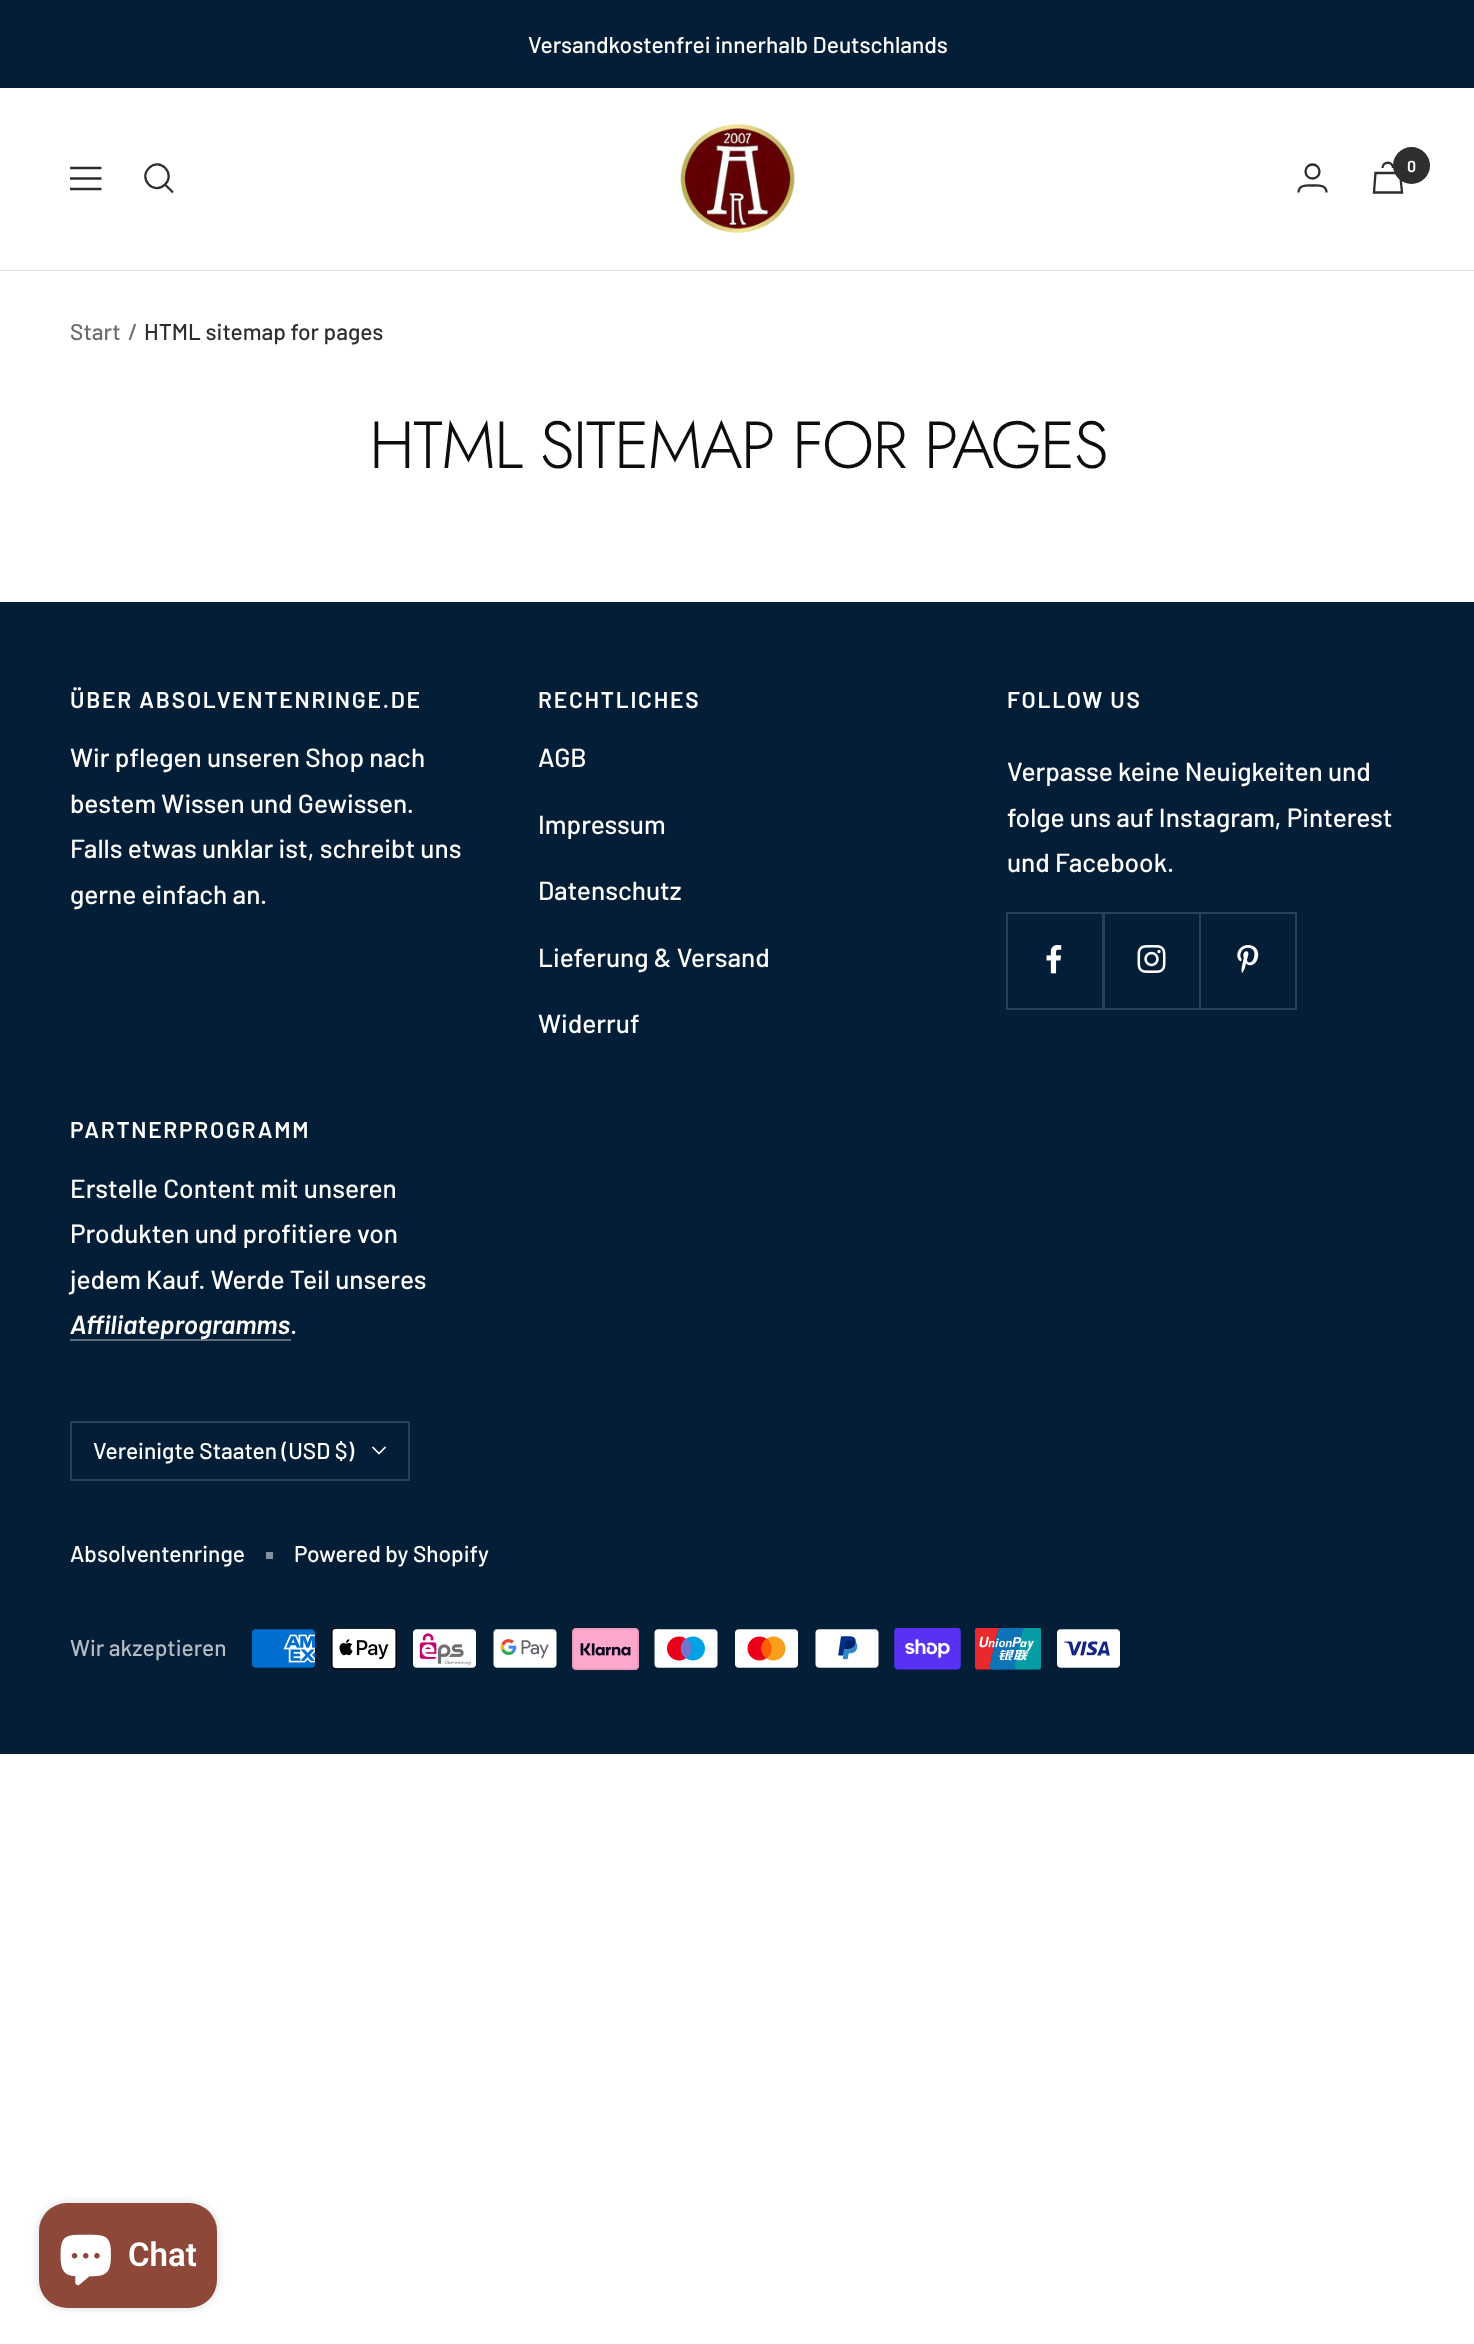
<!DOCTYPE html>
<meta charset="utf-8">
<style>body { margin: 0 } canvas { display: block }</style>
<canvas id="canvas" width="1474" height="2344"></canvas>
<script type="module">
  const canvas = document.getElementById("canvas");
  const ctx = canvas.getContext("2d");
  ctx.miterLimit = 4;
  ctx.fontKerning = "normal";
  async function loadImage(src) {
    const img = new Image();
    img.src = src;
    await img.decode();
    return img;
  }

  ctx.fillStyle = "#ffffff";
  ctx.fillRect(0, 0, 1474, 2344);
  ctx.fillStyle = "#051e38";
  ctx.fillRect(0, 0, 1474, 88);
  ctx.font = "500 22.75px Barlow";
  ctx.fillStyle = "#ffffff";
  ctx.fillText("Versandkostenfrei innerhalb Deutschlands", 528, 53);
  ctx.fillStyle = "#e0e0e0";
  ctx.fillRect(0, 270, 1474, 1);
  ctx.beginPath();
  ctx.moveTo(70, 168);
  ctx.lineTo(101.5, 168);
  ctx.moveTo(70, 189);
  ctx.lineTo(101.5, 189);
  ctx.closePath();
  ctx.moveTo(70, 178.5);
  ctx.lineTo(101.5, 178.5);
  ctx.closePath();
  ctx.strokeStyle = "#2e2e2e";
  ctx.lineWidth = 2.3;
  ctx.stroke();
  ctx.beginPath();
  ctx.moveTo(165, 184.5);
  ctx.bezierCurveTo(176, 173.5, 160, 157, 149, 168);
  ctx.bezierCurveTo(138, 179, 154, 195.5, 165, 184.5);
  ctx.closePath();
  ctx.moveTo(165, 184.5);
  ctx.lineTo(173, 192.5);
  ctx.stroke();
  ctx.drawImage(await loadImage("img1.png"), 680, 124, 115, 109);
  ctx.beginPath();
  ctx.arc(1312.5, 171.5, 7, 0, Math.PI * 2);
  ctx.stroke();
  ctx.beginPath();
  ctx.moveTo(1298.5, 192.5);
  ctx.bezierCurveTo(1298.5, 184.5, 1307, 185.5, 1312.5, 185.5);
  ctx.bezierCurveTo(1318, 185.5, 1326.5, 184.5, 1326.5, 192.5);
  ctx.stroke();
  ctx.beginPath();
  ctx.moveTo(1375.5, 173);
  ctx.lineTo(1400, 173);
  ctx.lineTo(1402, 192.5);
  ctx.lineTo(1374, 192.5);
  ctx.closePath();
  ctx.moveTo(1393, 168);
  ctx.bezierCurveTo(1393, 161, 1382.5, 161, 1382.5, 168);
  ctx.stroke();
  ctx.fillStyle = "#2e2e2e";
  ctx.beginPath();
  ctx.arc(1411.5, 165.5, 18.5, 0, Math.PI * 2);
  ctx.fill();
  ctx.font = "600 16px Barlow";
  ctx.fillStyle = "#ffffff";
  ctx.fillText("0", 1407, 172);
  ctx.font = "500 22.75px Barlow";
  ctx.fillStyle = "#6d6d6d";
  ctx.fillText("Start", 70, 340);
  ctx.fillText("/", 128, 340);
  ctx.fillStyle = "#2e2e2e";
  ctx.fillText("HTML sitemap for pages", 144, 340);
  ctx.letterSpacing = "-1.75px";
  ctx.font = "300 66.5px Jost";
  ctx.fillStyle = "#0d0d0d";
  ctx.fillText("HTML SITEMAP FOR PAGES", 369, 468);
  ctx.fillStyle = "#051e38";
  ctx.fillRect(0, 602, 1474, 1152);
  ctx.letterSpacing = "1.75px";
  ctx.font = "600 22.75px Barlow";
  ctx.fillStyle = "#ffffff";
  ctx.fillText("ÜBER ABSOLVENTENRINGE.DE", 70, 708);
  ctx.letterSpacing = "0px";
  ctx.font = "500 26.25px Barlow";
  ctx.fillText("Wir pflegen unseren Shop nach", 70, 767);
  ctx.fillText("bestem Wissen und Gewissen.", 70, 813);
  ctx.fillText("Falls etwas unklar ist, schreibt uns", 70, 858);
  ctx.fillText("gerne einfach an.", 70, 904);
  ctx.letterSpacing = "1.75px";
  ctx.font = "600 22.75px Barlow";
  ctx.fillText("RECHTLICHES", 538, 708);
  ctx.letterSpacing = "0px";
  ctx.font = "500 26.25px Barlow";
  ctx.fillText("AGB", 538, 767);
  ctx.fillText("Impressum", 538, 834);
  ctx.fillText("Datenschutz", 538, 900);
  ctx.fillText("Lieferung & Versand", 538, 967);
  ctx.fillText("Widerruf", 538, 1033);
  ctx.letterSpacing = "1.75px";
  ctx.font = "600 22.75px Barlow";
  ctx.fillText("FOLLOW US", 1007, 708);
  ctx.letterSpacing = "0px";
  ctx.font = "500 26.25px Barlow";
  ctx.fillText("Verpasse keine Neuigkeiten und", 1007, 781);
  ctx.fillText("folge uns auf Instagram, Pinterest", 1007, 827);
  ctx.fillText("und Facebook.", 1007, 872);
  ctx.fillStyle = "#2b4056";
  ctx.beginPath();
  ctx.moveTo(1008, 1008);
  ctx.lineTo(1008, 1010);
  ctx.lineTo(1104, 1010);
  ctx.lineTo(1104, 914);
  ctx.lineTo(1102, 914);
  ctx.lineTo(1102, 1008);
  ctx.closePath();
  ctx.fill();
  ctx.beginPath();
  ctx.moveTo(1006, 914);
  ctx.lineTo(1006, 1010);
  ctx.lineTo(1103, 1010);
  ctx.lineTo(1103, 914);
  ctx.lineTo(1102, 914);
  ctx.lineTo(1102, 1008);
  ctx.lineTo(1006, 1008);
  ctx.closePath();
  ctx.fill();
  ctx.fillRect(1006, 912, 97, 2);
  ctx.fillRect(1006, 912, 2, 96);
  ctx.drawImage(await loadImage("img2.png"), 1046, 945, 16, 29);
  ctx.beginPath();
  ctx.moveTo(1104, 1008);
  ctx.lineTo(1104, 1010);
  ctx.lineTo(1201, 1010);
  ctx.lineTo(1201, 914);
  ctx.lineTo(1199, 914);
  ctx.lineTo(1199, 1008);
  ctx.closePath();
  ctx.fill();
  ctx.fillRect(1103, 912, 98, 2);
  ctx.fillRect(1104, 912, 1, 96);
  ctx.drawImage(await loadImage("img3.png"), 1137, 945, 29, 28);
  ctx.beginPath();
  ctx.moveTo(1201, 1008);
  ctx.lineTo(1201, 1010);
  ctx.lineTo(1297, 1010);
  ctx.lineTo(1297, 914);
  ctx.lineTo(1295, 914);
  ctx.lineTo(1295, 1008);
  ctx.closePath();
  ctx.fill();
  ctx.fillRect(1199, 912, 98, 2);
  ctx.drawImage(await loadImage("img4.png"), 1237, 945, 22, 28);
  ctx.letterSpacing = "1.75px";
  ctx.font = "600 22.75px Barlow";
  ctx.fillStyle = "#ffffff";
  ctx.fillText("PARTNERPROGRAMM", 70, 1138);
  ctx.letterSpacing = "0px";
  ctx.font = "500 26.25px Barlow";
  ctx.fillText("Erstelle Content mit unseren", 70, 1198);
  ctx.fillText("Produkten und profitiere von", 70, 1243);
  ctx.fillText("jedem Kauf. Werde Teil unseres", 70, 1289);
  ctx.fillStyle = "#5d6d7e";
  ctx.fillRect(70, 1339, 221, 2);
  ctx.font = "italic 600 26.25px Barlow";
  ctx.fillStyle = "#ffffff";
  ctx.fillText("Affiliateprogramms", 70, 1334);
  ctx.font = "500 26.25px Barlow";
  ctx.fillText(".", 290, 1334);
  ctx.strokeStyle = "#2b4056";
  ctx.lineWidth = 2;
  ctx.strokeRect(71, 1422, 338, 58);
  ctx.font = "500 22.75px Barlow";
  ctx.fillText("Vereinigte Staaten (USD $)", 93, 1459);
  ctx.beginPath();
  ctx.moveTo(372.5, 1447);
  ctx.lineTo(379, 1453.5);
  ctx.lineTo(385.5, 1447);
  ctx.strokeStyle = "#ffffff";
  ctx.lineWidth = 1.7;
  ctx.stroke();
  ctx.fillText("Absolventenringe", 70, 1562);
  ctx.fillStyle = "#828f9c";
  ctx.fillRect(266, 1552, 7, 7);
  ctx.fillStyle = "#ffffff";
  ctx.fillText("Powered by Shopify", 294, 1562);
  ctx.fillStyle = "#b4bcc3";
  ctx.fillText("Wir akzeptieren", 70, 1656);
  ctx.drawImage(await loadImage("img5.png"), 252, 1629, 63, 39);
  ctx.drawImage(await loadImage("img6.png"), 331, 1628, 66, 42);
  ctx.drawImage(await loadImage("img7.png"), 413, 1629, 63, 39);
  ctx.drawImage(await loadImage("img8.png"), 493, 1629, 64, 39);
  ctx.drawImage(await loadImage("img9.png"), 572, 1628, 67, 42);
  ctx.drawImage(await loadImage("img10.png"), 654, 1629, 64, 39);
  ctx.drawImage(await loadImage("img11.png"), 735, 1629, 63, 39);
  ctx.drawImage(await loadImage("img12.png"), 815, 1629, 64, 39);
  ctx.drawImage(await loadImage("img13.png"), 894, 1628, 67, 42);
  ctx.drawImage(await loadImage("img14.png"), 975, 1628, 66, 42);
  ctx.drawImage(await loadImage("img15.png"), 1057, 1629, 63, 39);
  ctx.fillStyle = "rgba(0, 0, 0, 0.15)";
  ctx.filter = "blur(4.5px)";
  ctx.beginPath();
  ctx.roundRect(39, 2203, 178, 105, 28);
  ctx.fill();
  ctx.filter = "none";
  ctx.fillStyle = "#8e483a";
  ctx.beginPath();
  ctx.roundRect(39, 2203, 178, 105, 28);
  ctx.fill();
  ctx.drawImage(await loadImage("img16.png"), 60, 2234, 51, 52);
  ctx.font = "600 33px Roboto";
  ctx.fillStyle = "#ffffff";
  ctx.fillText("Chat", 128, 2266);
</script>
